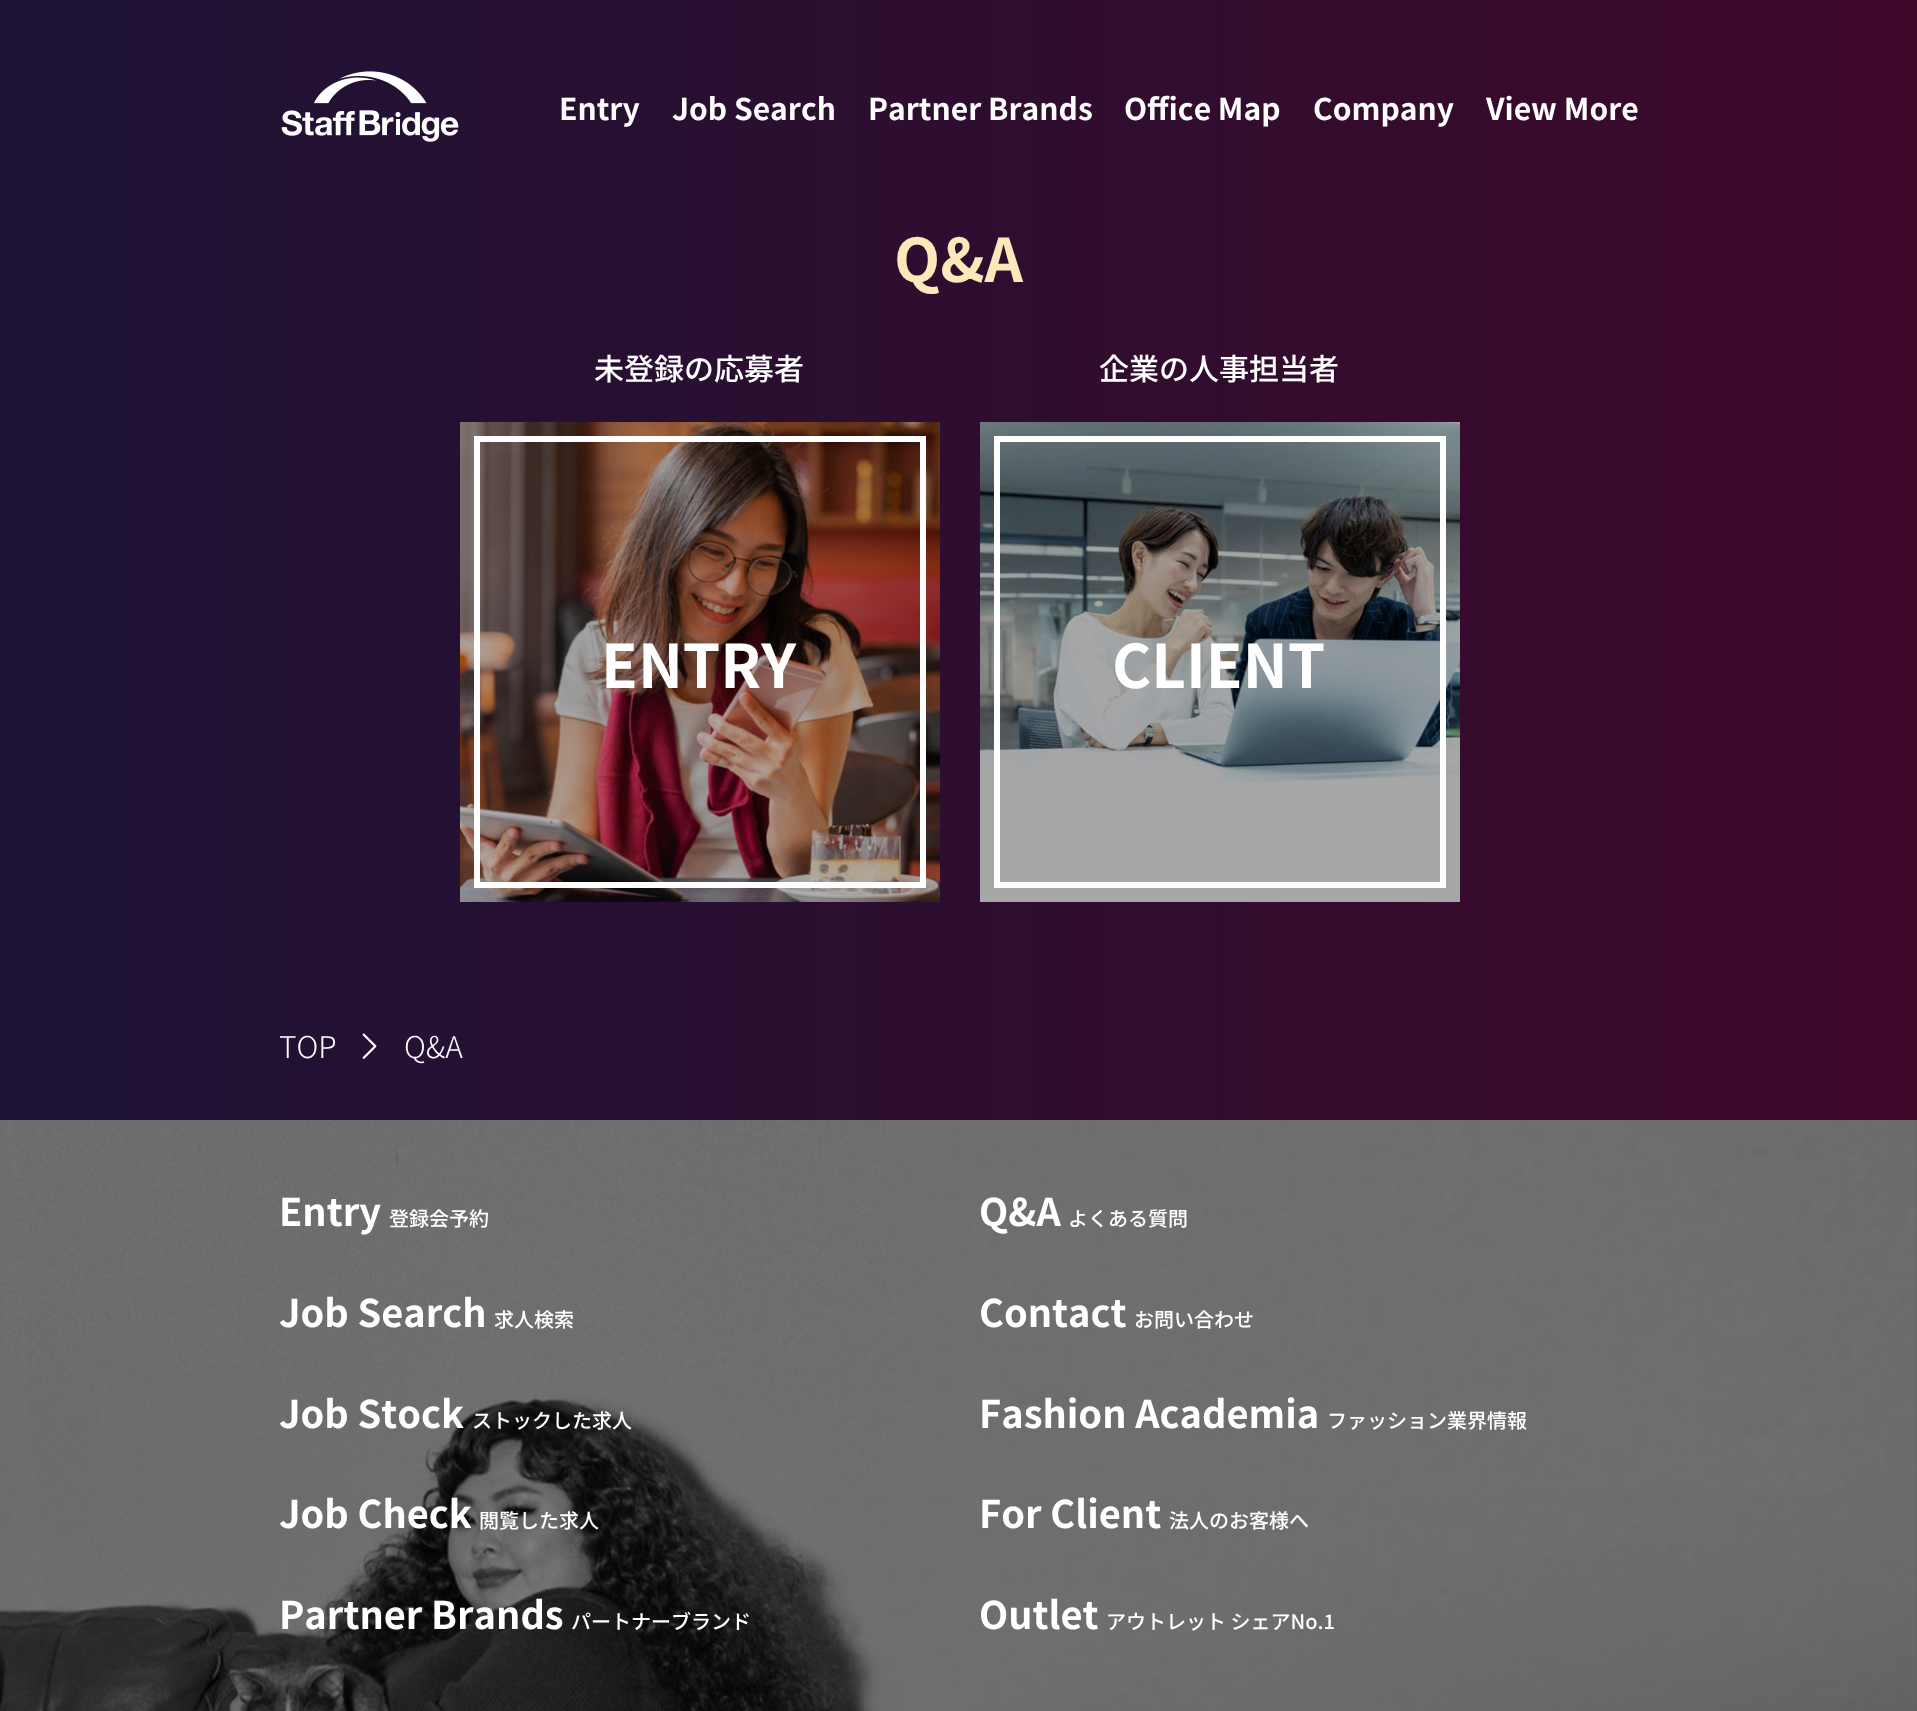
<!DOCTYPE html>
<meta charset="utf-8">
<style>body { margin: 0 } canvas { display: block }</style>
<canvas id="canvas" width="1917" height="1711"></canvas>
<script type="module">
  const canvas = document.getElementById("canvas");
  const ctx = canvas.getContext("2d");
  ctx.miterLimit = 4;
  ctx.fontKerning = "none";
  async function loadImage(src) {
    const img = new Image();
    img.src = src;
    await img.decode();
    return img;
  }
  let gradient;

  ctx.fillStyle = "#ffffff";
  ctx.fillRect(0, 0, 1917, 1711);
  gradient = ctx.createLinearGradient(-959, 856, 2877, 856);
  gradient.addColorStop(0, "#0c183b");
  gradient.addColorStop(1, "#4f0324");
  ctx.fillStyle = gradient;
  ctx.fillRect(0, 0, 1917, 1711);
  ctx.drawImage(await loadImage("img1.png"), 281, 71, 178, 71);
  ctx.font = "bold 30px Noto Sans JP";
  ctx.fillStyle = "#ffffff";
  ctx.fillText("Entry", 559, 120);
  ctx.fillText("Job Search", 672, 120);
  ctx.fillText("Partner Brands", 868, 120);
  ctx.fillText("Office Map", 1124, 120);
  ctx.fillText("Company", 1313, 120);
  ctx.fillText("View More", 1486, 120);
  ctx.font = "bold 60px Noto Sans JP";
  ctx.fillStyle = "#fce8b8";
  ctx.fillText("Q&A", 894, 282);
  ctx.font = "500 30px Noto Sans JP";
  ctx.fillStyle = "#ffffff";
  ctx.fillText("未登録の応募者", 594, 380);
  ctx.drawImage(await loadImage("img2.png"), 460, 422, 480, 480);
  ctx.strokeStyle = "#ffffff";
  ctx.lineWidth = 6;
  ctx.strokeRect(477, 439, 446, 446);
  ctx.font = "bold 60px Noto Sans JP";
  ctx.fillText("ENTRY", 601, 688);
  ctx.font = "500 30px Noto Sans JP";
  ctx.fillText("企業の人事担当者", 1099, 380);
  ctx.drawImage(await loadImage("img3.png"), 980, 422, 480, 480);
  ctx.strokeRect(997, 439, 446, 446);
  ctx.font = "bold 60px Noto Sans JP";
  ctx.fillText("CLIENT", 1112, 688);
  ctx.font = "300 30px Noto Sans JP";
  ctx.fillText("TOP", 279, 1058);
  ctx.drawImage(await loadImage("img4.png"), 362, 1033, 15, 26);
  ctx.fillText("Q&A", 404, 1058);
  ctx.drawImage(await loadImage("img5.png"), 0, 1120, 1917, 591);
  ctx.font = "bold 38px Noto Sans JP";
  ctx.fillText("Entry", 279, 1226);
  ctx.font = "500 20px Noto Sans JP";
  ctx.fillText("登録会予約", 389, 1226);
  ctx.font = "bold 38px Noto Sans JP";
  ctx.fillText("Job Search", 279, 1327);
  ctx.font = "500 20px Noto Sans JP";
  ctx.fillText("求人検索", 494, 1327);
  ctx.font = "bold 38px Noto Sans JP";
  ctx.fillText("Job Stock", 279, 1428);
  ctx.font = "500 20px Noto Sans JP";
  ctx.fillText("ストックした求人", 472, 1428);
  ctx.font = "bold 38px Noto Sans JP";
  ctx.fillText("Job Check", 279, 1528);
  ctx.font = "500 20px Noto Sans JP";
  ctx.fillText("閲覧した求人", 479, 1528);
  ctx.font = "bold 38px Noto Sans JP";
  ctx.fillText("Partner Brands", 279, 1629);
  ctx.font = "500 20px Noto Sans JP";
  ctx.fillText("パートナーブランド", 571, 1629);
  ctx.font = "bold 38px Noto Sans JP";
  ctx.fillText("Q&A", 979, 1226);
  ctx.font = "500 20px Noto Sans JP";
  ctx.fillText("よくある質問", 1068, 1226);
  ctx.font = "bold 38px Noto Sans JP";
  ctx.fillText("Contact", 979, 1327);
  ctx.font = "500 20px Noto Sans JP";
  ctx.fillText("お問い合わせ", 1134, 1327);
  ctx.font = "bold 38px Noto Sans JP";
  ctx.fillText("Fashion Academia", 979, 1428);
  ctx.font = "500 20px Noto Sans JP";
  ctx.fillText("ファッション業界情報", 1327, 1428);
  ctx.font = "bold 38px Noto Sans JP";
  ctx.fillText("For Client", 979, 1528);
  ctx.font = "500 20px Noto Sans JP";
  ctx.fillText("法人のお客様へ", 1169, 1528);
  ctx.font = "bold 38px Noto Sans JP";
  ctx.fillText("Outlet", 979, 1629);
  ctx.font = "500 20px Noto Sans JP";
  ctx.fillText("アウトレット シェアNo.1", 1106, 1629);
</script>
